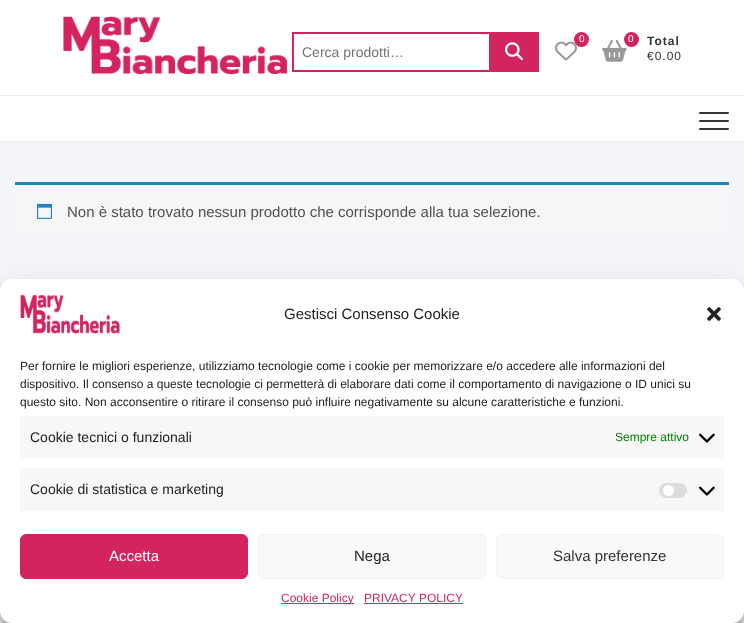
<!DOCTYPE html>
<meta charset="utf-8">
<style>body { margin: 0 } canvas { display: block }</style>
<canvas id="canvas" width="744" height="623"></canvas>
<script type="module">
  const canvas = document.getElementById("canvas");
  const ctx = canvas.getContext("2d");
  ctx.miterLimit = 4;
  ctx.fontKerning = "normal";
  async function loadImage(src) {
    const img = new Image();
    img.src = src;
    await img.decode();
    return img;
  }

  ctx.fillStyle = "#f3f4f8";
  ctx.fillRect(0, 0, 744, 623);
  ctx.fillStyle = "#ffffff";
  ctx.fillRect(0, 0, 744, 141);
  ctx.drawImage(await loadImage("img1.png"), 63, 16, 225, 59);
  ctx.fillStyle = "#d3245f";
  ctx.fillRect(292, 32, 198, 2);
  ctx.fillRect(292, 70, 198, 2);
  ctx.fillRect(292, 32, 2, 40);
  ctx.font = "14px Liberation Sans";
  ctx.fillStyle = "#757575";
  ctx.fillText("Cerca prodotti…", 302, 57);
  ctx.fillStyle = "#d3245f";
  ctx.fillRect(489, 32, 50, 40);
  ctx.drawImage(await loadImage("img2.png"), 505, 42, 18, 19);
  ctx.drawImage(await loadImage("img3.png"), 555, 41, 22, 20);
  ctx.beginPath();
  ctx.arc(581.5, 39.5, 7.5, 0, Math.PI * 2);
  ctx.fill();
  ctx.font = "10px Liberation Sans";
  ctx.fillStyle = "#ffffff";
  ctx.fillText("0", 579, 42);
  ctx.drawImage(await loadImage("img4.png"), 602, 39, 25, 23);
  ctx.fillStyle = "#d3245f";
  ctx.beginPath();
  ctx.arc(631.5, 39.5, 7.5, 0, Math.PI * 2);
  ctx.fill();
  ctx.fillStyle = "#ffffff";
  ctx.fillText("0", 628, 42);
  ctx.letterSpacing = "1px";
  ctx.font = "bold 12px Liberation Sans";
  ctx.fillStyle = "#333333";
  ctx.fillText("Total", 647, 45);
  ctx.font = "12px Liberation Sans";
  ctx.fillText("€0.00", 647, 60);
  ctx.fillStyle = "#ebebeb";
  ctx.fillRect(0, 95, 744, 1);
  ctx.fillRect(0, 141, 744, 1);
  ctx.fillStyle = "#333333";
  ctx.beginPath();
  ctx.roundRect(699, 120, 30, 2, 1);
  ctx.fill();
  ctx.beginPath();
  ctx.roundRect(699, 112, 30, 2, 1);
  ctx.fill();
  ctx.beginPath();
  ctx.roundRect(699, 128, 30, 2, 1);
  ctx.fill();
  ctx.fillStyle = "#f6f5f8";
  ctx.fillRect(15, 185, 714, 54);
  ctx.fillStyle = "#1e85be";
  ctx.fillRect(15, 182, 714, 3);
  ctx.drawImage(await loadImage("img5.png"), 37, 203, 15, 16);
  ctx.letterSpacing = "0px";
  ctx.font = "15px Liberation Sans";
  ctx.fillStyle = "#515151";
  ctx.fillText("Non è stato trovato nessun prodotto che corrisponde alla tua selezione.", 67, 217);
  ctx.fillStyle = "rgba(0, 0, 0, 0.23)";
  ctx.filter = "blur(3px)";
  ctx.beginPath();
  ctx.roundRect(0, 285, 744, 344, 12);
  ctx.fill();
  ctx.filter = "none";
  ctx.fillStyle = "rgba(0, 0, 0, 0.19)";
  ctx.filter = "blur(10px)";
  ctx.beginPath();
  ctx.roundRect(0, 289, 744, 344, 12);
  ctx.fill();
  ctx.filter = "none";
  ctx.fillStyle = "#ffffff";
  ctx.beginPath();
  ctx.roundRect(0, 279, 744, 344, 12);
  ctx.fill();
  ctx.drawImage(await loadImage("img6.png"), 20, 294, 100, 40);
  ctx.fillStyle = "#222222";
  ctx.fillText("Gestisci Consenso Cookie", 284, 319);
  ctx.drawImage(await loadImage("img7.png"), 707, 307, 14, 14);
  ctx.font = "12px Liberation Sans";
  ctx.fillText("Per fornire le migliori esperienze, utilizziamo tecnologie come i cookie per memorizzare e/o accedere alle informazioni del", 20, 370);
  ctx.fillText("dispositivo. Il consenso a queste tecnologie ci permetterà di elaborare dati come il comportamento di navigazione o ID unici su", 20, 388);
  ctx.fillText("questo sito. Non acconsentire o ritirare il consenso può influire negativamente su alcune caratteristiche e funzioni.", 20, 406);
  ctx.fillStyle = "#f7f7f7";
  ctx.fillRect(20, 416, 704, 42);
  ctx.font = "14px Liberation Sans";
  ctx.fillStyle = "#222222";
  ctx.fillText("Cookie tecnici o funzionali", 30, 442);
  ctx.font = "12px Liberation Sans";
  ctx.fillStyle = "#008000";
  ctx.fillText("Sempre attivo", 615, 441);
  ctx.drawImage(await loadImage("img8.png"), 699, 433, 16, 10);
  ctx.fillStyle = "#f7f7f7";
  ctx.fillRect(20, 468, 704, 43);
  ctx.font = "14px Liberation Sans";
  ctx.fillStyle = "#222222";
  ctx.fillText("Cookie di statistica e marketing", 30, 494);
  ctx.fillStyle = "#dddddd";
  ctx.beginPath();
  ctx.roundRect(659, 483, 28, 15, 7.5);
  ctx.fill();
  ctx.fillStyle = "#ffffff";
  ctx.beginPath();
  ctx.arc(668.5, 490.5, 5.5, 0, Math.PI * 2);
  ctx.fill();
  ctx.drawImage(await loadImage("img8.png"), 699, 486, 16, 10);
  ctx.fillStyle = "#d3245f";
  ctx.beginPath();
  ctx.roundRect(20.5, 534.5, 227, 44, 5.5);
  ctx.fill();
  ctx.strokeStyle = "#d3245f";
  ctx.stroke();
  ctx.font = "15px Liberation Sans";
  ctx.fillStyle = "#ffffff";
  ctx.fillText("Accetta", 109, 561);
  ctx.fillStyle = "#f9f9f9";
  ctx.beginPath();
  ctx.roundRect(258.5, 534.5, 227, 44, 5.5);
  ctx.fill();
  ctx.strokeStyle = "#f2f2f2";
  ctx.stroke();
  ctx.fillStyle = "#222222";
  ctx.fillText("Nega", 354, 561);
  ctx.fillStyle = "#f9f9f9";
  ctx.beginPath();
  ctx.roundRect(496.5, 534.5, 227, 44, 5.5);
  ctx.fill();
  ctx.stroke();
  ctx.fillStyle = "#333333";
  ctx.fillText("Salva preferenze", 553, 561);
  ctx.fillStyle = "#d3245f";
  ctx.fillRect(281, 603, 73, 1);
  ctx.font = "12px Liberation Sans";
  ctx.fillText("Cookie Policy", 281, 602);
  ctx.fillText("PRIVACY POLICY", 364, 602);
  ctx.fillRect(364, 603, 99, 1);
</script>
